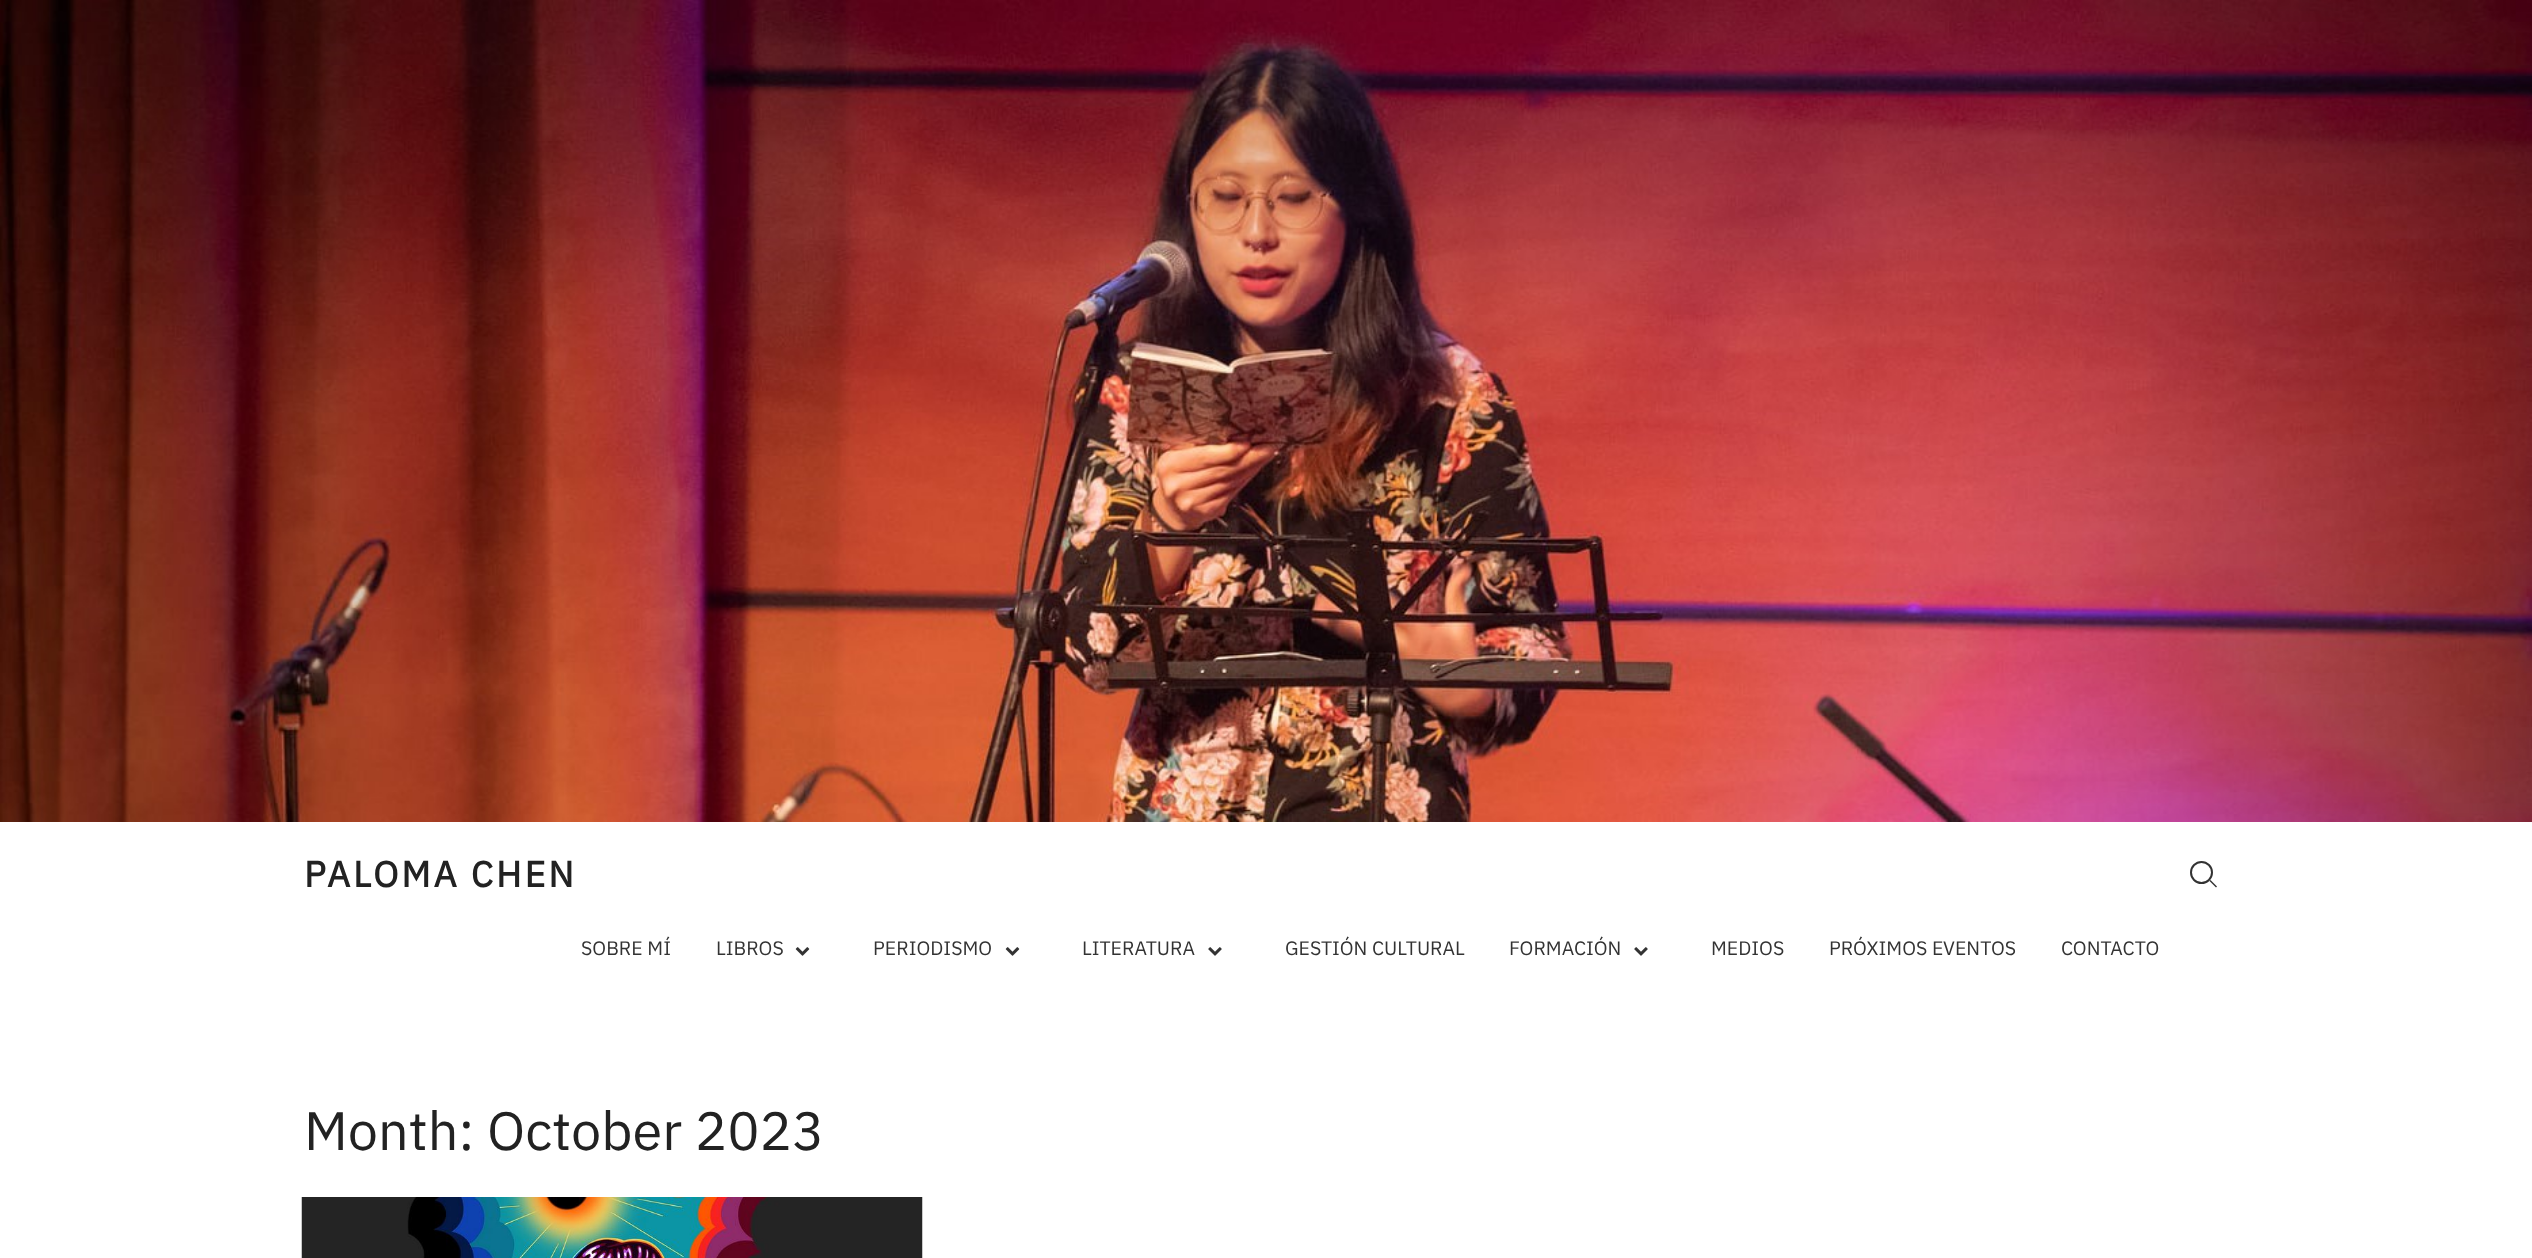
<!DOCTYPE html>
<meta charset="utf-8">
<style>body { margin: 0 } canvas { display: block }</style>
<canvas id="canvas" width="2532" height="1258"></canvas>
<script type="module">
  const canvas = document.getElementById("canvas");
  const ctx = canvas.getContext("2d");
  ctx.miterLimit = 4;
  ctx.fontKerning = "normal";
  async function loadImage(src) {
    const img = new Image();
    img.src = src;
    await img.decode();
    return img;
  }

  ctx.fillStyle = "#ffffff";
  ctx.fillRect(0, 0, 2532, 1258);
  ctx.drawImage(await loadImage("img1.png"), 0, 0, 2532, 822);
  ctx.letterSpacing = "2.9px";
  ctx.font = "bold 36px IBM Plex Sans";
  ctx.fillStyle = "#222222";
  ctx.fillText("PALOMA CHEN", 304, 887);
  ctx.beginPath();
  ctx.arc(2201.5, 872.5, 10.5, 0, Math.PI * 2);
  ctx.strokeStyle = "#333333";
  ctx.lineWidth = 2;
  ctx.stroke();
  ctx.fillStyle = "#333333";
  ctx.beginPath();
  ctx.moveTo(2210.5, 880);
  ctx.lineTo(2217, 886.5);
  ctx.lineTo(2216, 887.5);
  ctx.lineTo(2209.5, 881);
  ctx.closePath();
  ctx.fill();
  ctx.letterSpacing = "0px";
  ctx.font = "19.5px IBM Plex Sans";
  ctx.fillText("SOBRE MÍ", 581, 955);
  ctx.fillText("LIBROS", 716, 955);
  ctx.drawImage(await loadImage("img2.png"), 795, 947, 15, 9);
  ctx.fillText("PERIODISMO", 873, 955);
  ctx.drawImage(await loadImage("img2.png"), 1005, 947, 15, 9);
  ctx.fillText("LITERATURA", 1082, 955);
  ctx.drawImage(await loadImage("img3.png"), 1208, 947, 14, 9);
  ctx.fillText("GESTIÓN CULTURAL", 1285, 955);
  ctx.fillText("FORMACIÓN", 1509, 955);
  ctx.drawImage(await loadImage("img3.png"), 1634, 947, 14, 9);
  ctx.fillText("MEDIOS", 1711, 955);
  ctx.fillText("PRÓXIMOS EVENTOS", 1829, 955);
  ctx.fillText("CONTACTO", 2061, 955);
  ctx.font = "54px IBM Plex Sans";
  ctx.fillStyle = "#222222";
  ctx.fillText("Month: October 2023", 304, 1150);
  ctx.drawImage(await loadImage("img4.png"), 301, 1197, 622, 61);
</script>
